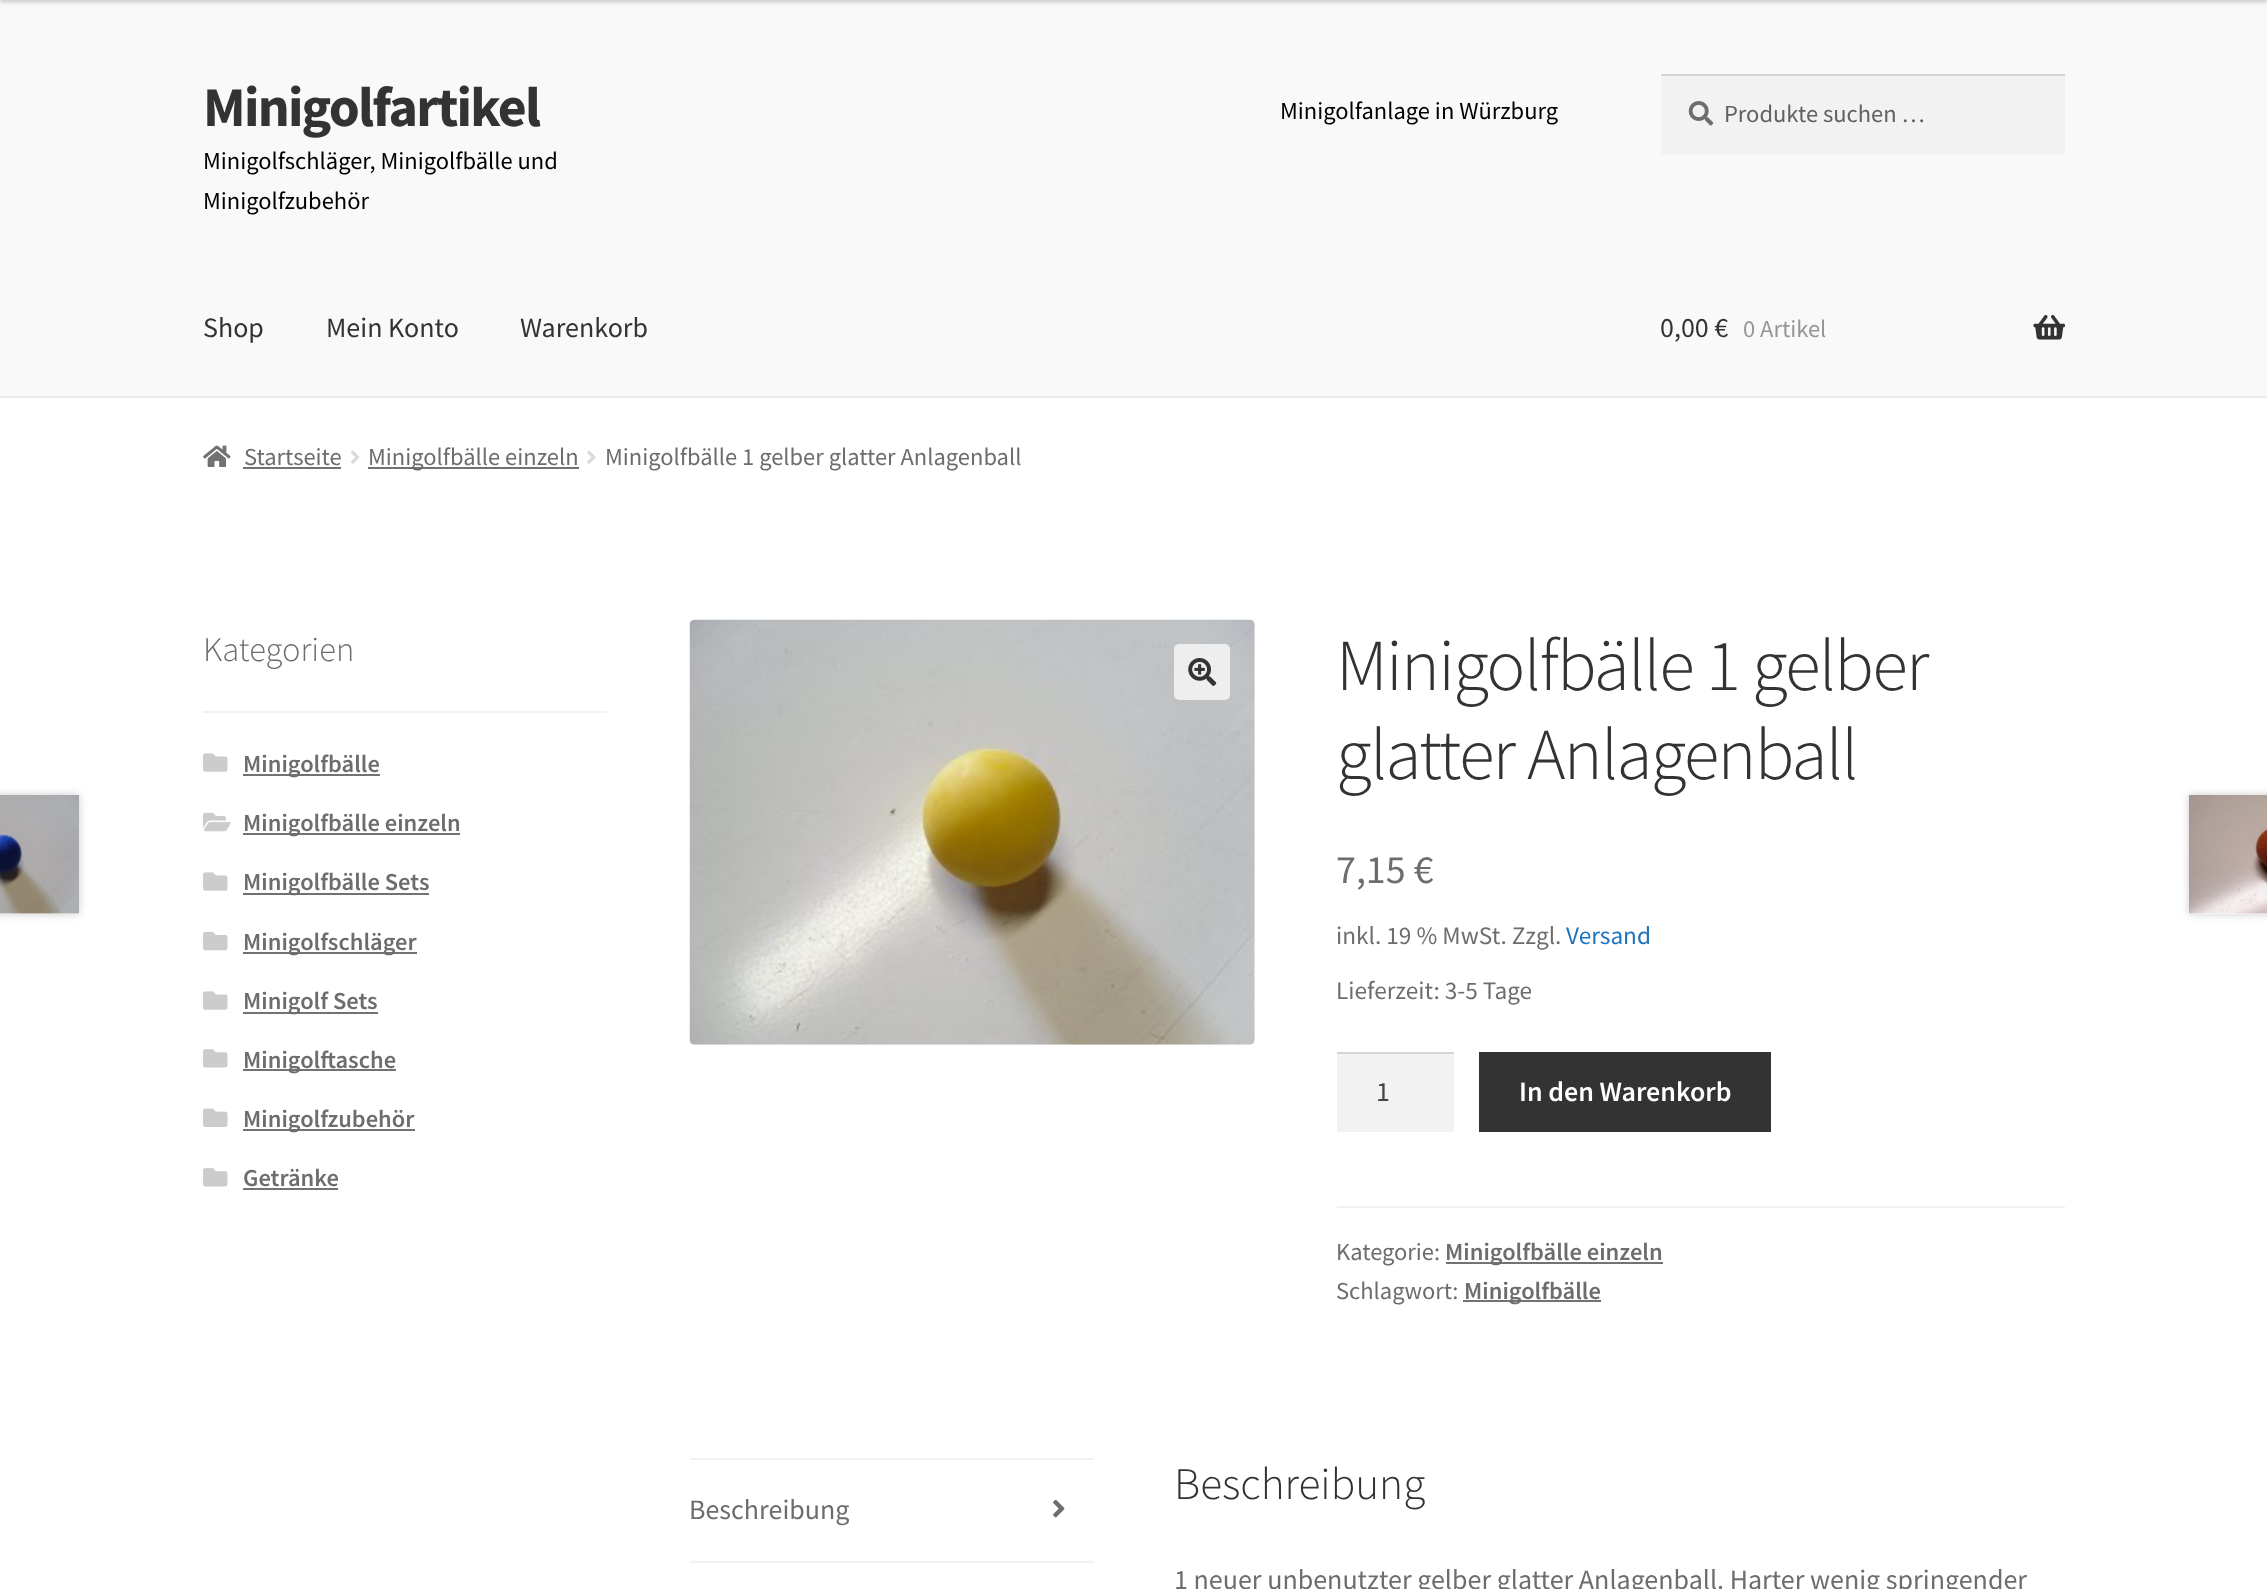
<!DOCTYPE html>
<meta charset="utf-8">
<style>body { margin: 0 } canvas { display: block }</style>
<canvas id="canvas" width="2267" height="1589"></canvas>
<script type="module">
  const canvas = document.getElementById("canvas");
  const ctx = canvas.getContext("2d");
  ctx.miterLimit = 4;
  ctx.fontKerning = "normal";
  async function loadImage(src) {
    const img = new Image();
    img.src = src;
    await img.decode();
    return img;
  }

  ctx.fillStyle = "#ffffff";
  ctx.fillRect(0, 0, 2267, 1589);
  ctx.fillStyle = "#f9f9f9";
  ctx.fillRect(0, 0, 2267, 396);
  ctx.fillStyle = "rgba(0, 0, 0, 0.2)";
  ctx.filter = "blur(2px)";
  ctx.beginPath();
  ctx.rect(0, -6, 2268, 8);
  ctx.fill();
  ctx.filter = "none";
  ctx.fillStyle = "#eaeaea";
  ctx.fillRect(0, 396, 2267, 2);
  ctx.letterSpacing = "-1.75px";
  ctx.font = "bold 56px Source Sans Pro";
  ctx.fillStyle = "#333333";
  ctx.fillText("Minigolfartikel", 203, 126);
  ctx.letterSpacing = "0px";
  ctx.font = "24.5px Source Sans Pro";
  ctx.fillStyle = "#000000";
  ctx.fillText("Minigolfschläger, Minigolfbälle und", 203, 169);
  ctx.fillText("Minigolfzubehör", 203, 209);
  ctx.fillText("Minigolfanlage in Würzburg", 1280, 119);
  ctx.fillStyle = "#f2f2f2";
  ctx.fillRect(1661, 76, 404, 78);
  ctx.drawImage(await loadImage("img1.png"), 1688, 101, 26, 25);
  ctx.fillStyle = "#d4d4d4";
  ctx.fillRect(1661, 74, 404, 2);
  ctx.fillStyle = "#616161";
  ctx.fillText("Produkte suchen …", 1724, 122);
  ctx.font = "28px Source Sans Pro";
  ctx.fillStyle = "#333333";
  ctx.fillText("Shop", 203, 337);
  ctx.fillText("Mein Konto", 326, 337);
  ctx.fillText("Warenkorb", 520, 337);
  ctx.fillText("0,00 €", 1660, 337);
  ctx.font = "24.5px Source Sans Pro";
  ctx.fillStyle = "#969696";
  ctx.fillText("0 Artikel", 1743, 337);
  ctx.drawImage(await loadImage("img2.png"), 2033, 315, 32, 25);
  ctx.drawImage(await loadImage("img3.png"), 203, 445, 28, 22);
  ctx.fillStyle = "#6d6d6d";
  ctx.fillText("Startseite", 244, 465);
  ctx.fillStyle = "#727272";
  ctx.fillRect(243, 467, 98, 2);
  ctx.drawImage(await loadImage("img4.png"), 350, 450, 10, 14);
  ctx.fillRect(368, 467, 211, 2);
  ctx.fillStyle = "#6d6d6d";
  ctx.fillText("Minigolfbälle einzeln", 368, 465);
  ctx.drawImage(await loadImage("img5.png"), 587, 450, 9, 14);
  ctx.fillText("Minigolfbälle 1 gelber glatter Anlagenball", 605, 465);
  ctx.fillStyle = "#f2f2f2";
  ctx.fillRect(203, 711, 404, 2);
  ctx.font = "300 34.5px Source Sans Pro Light";
  ctx.fillStyle = "#6d6d6d";
  ctx.fillText("Kategorien", 203, 661);
  ctx.drawImage(await loadImage("img6.png"), 203, 753, 25, 19);
  ctx.fillStyle = "#727272";
  ctx.fillRect(243, 774, 137, 2);
  ctx.font = "600 24.5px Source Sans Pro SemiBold";
  ctx.fillStyle = "#6d6d6d";
  ctx.fillText("Minigolfbälle", 243, 772);
  ctx.drawImage(await loadImage("img7.png"), 203, 812, 28, 20);
  ctx.fillStyle = "#727272";
  ctx.fillRect(243, 833, 217, 2);
  ctx.fillStyle = "#6d6d6d";
  ctx.fillText("Minigolfbälle einzeln", 243, 831);
  ctx.drawImage(await loadImage("img6.png"), 203, 872, 25, 19);
  ctx.fillStyle = "#727272";
  ctx.fillRect(243, 893, 186, 2);
  ctx.fillStyle = "#6d6d6d";
  ctx.fillText("Minigolfbälle Sets", 243, 890);
  ctx.drawImage(await loadImage("img8.png"), 203, 931, 25, 20);
  ctx.fillStyle = "#727272";
  ctx.fillRect(243, 952, 174, 2);
  ctx.fillStyle = "#6d6d6d";
  ctx.fillText("Minigolfschläger", 243, 950);
  ctx.drawImage(await loadImage("img6.png"), 203, 991, 25, 19);
  ctx.fillStyle = "#727272";
  ctx.fillRect(243, 1012, 135, 2);
  ctx.fillStyle = "#6d6d6d";
  ctx.fillText("Minigolf Sets", 243, 1009);
  ctx.drawImage(await loadImage("img9.png"), 203, 1049, 25, 19);
  ctx.fillStyle = "#727272";
  ctx.fillRect(243, 1069, 153, 2);
  ctx.fillStyle = "#6d6d6d";
  ctx.fillText("Minigolftasche", 243, 1068);
  ctx.drawImage(await loadImage("img10.png"), 203, 1108, 25, 19);
  ctx.fillStyle = "#727272";
  ctx.fillRect(243, 1129, 172, 2);
  ctx.fillStyle = "#6d6d6d";
  ctx.fillText("Minigolfzubehör", 243, 1127);
  ctx.drawImage(await loadImage("img9.png"), 203, 1168, 25, 19);
  ctx.fillText("Getränke", 243, 1186);
  ctx.fillStyle = "#727272";
  ctx.fillRect(243, 1188, 95, 2);
  ctx.drawImage(await loadImage("img11.png"), 689, 619, 566, 426);
  ctx.fillStyle = "#eeeeee";
  ctx.beginPath();
  ctx.roundRect(1174, 644, 56, 56, 5);
  ctx.fill();
  ctx.drawImage(await loadImage("img12.png"), 1188, 658, 29, 28);
  ctx.letterSpacing = "-1.75px";
  ctx.font = "300 73.25px Source Sans Pro Light";
  ctx.fillStyle = "#333333";
  ctx.fillText("Minigolfbälle 1 gelber", 1336, 690);
  ctx.fillText("glatter Anlagenball", 1336, 779);
  ctx.letterSpacing = "0px";
  ctx.font = "40px Source Sans Pro";
  ctx.fillStyle = "#6d6d6d";
  ctx.fillText("7,15 €", 1336, 883);
  ctx.font = "25.25px Source Sans Pro";
  ctx.fillText("inkl. 19 % MwSt. Zzgl.", 1336, 944);
  ctx.fillStyle = "#1e73be";
  ctx.fillText("Versand", 1566, 944);
  ctx.fillStyle = "#6d6d6d";
  ctx.fillText("Lieferzeit: 3-5 Tage", 1336, 999);
  ctx.fillStyle = "#f2f2f2";
  ctx.fillRect(1337, 1054, 117, 78);
  ctx.fillStyle = "#d4d4d4";
  ctx.fillRect(1337, 1052, 117, 2);
  ctx.font = "28px Source Sans Pro";
  ctx.fillStyle = "#43454b";
  ctx.fillText("1", 1376, 1101);
  ctx.fillStyle = "#333333";
  ctx.fillRect(1479, 1052, 292, 80);
  ctx.font = "600 28px Source Sans Pro SemiBold";
  ctx.fillStyle = "#ffffff";
  ctx.fillText("In den Warenkorb", 1519, 1101);
  ctx.fillStyle = "#f2f2f2";
  ctx.fillRect(1337, 1206, 728, 2);
  ctx.font = "24.5px Source Sans Pro";
  ctx.fillStyle = "#6d6d6d";
  ctx.fillText("Kategorie:", 1336, 1260);
  ctx.fillStyle = "#727272";
  ctx.fillRect(1446, 1262, 217, 2);
  ctx.font = "600 24.5px Source Sans Pro SemiBold";
  ctx.fillStyle = "#6d6d6d";
  ctx.fillText("Minigolfbälle einzeln", 1445, 1260);
  ctx.font = "24.5px Source Sans Pro";
  ctx.fillText("Schlagwort:", 1336, 1299);
  ctx.fillStyle = "#727272";
  ctx.fillRect(1463, 1300, 138, 2);
  ctx.font = "600 24.5px Source Sans Pro SemiBold";
  ctx.fillStyle = "#6d6d6d";
  ctx.fillText("Minigolfbälle", 1464, 1299);
  ctx.fillStyle = "rgba(0, 0, 0, 0.2)";
  ctx.filter = "blur(4.5px)";
  ctx.beginPath();
  ctx.rect(-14, 795, 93, 119);
  ctx.fill();
  ctx.filter = "none";
  ctx.fillStyle = "#ffffff";
  ctx.fillRect(0, 913, 79, 1);
  ctx.drawImage(await loadImage("img13.png"), 0, 795, 79, 119);
  ctx.fillStyle = "rgba(0, 0, 0, 0.2)";
  ctx.filter = "blur(4.5px)";
  ctx.beginPath();
  ctx.rect(2189, 795, 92, 119);
  ctx.fill();
  ctx.filter = "none";
  ctx.fillStyle = "#ffffff";
  ctx.fillRect(2189, 913, 78, 1);
  ctx.drawImage(await loadImage("img14.png"), 2189, 795, 78, 119);
  ctx.fillStyle = "#f2f2f2";
  ctx.fillRect(690, 1458, 404, 2);
  ctx.fillRect(690, 1561, 404, 2);
  ctx.font = "28px Source Sans Pro";
  ctx.fillStyle = "#6d6d6d";
  ctx.fillText("Beschreibung", 689, 1519);
  ctx.drawImage(await loadImage("img15.png"), 1053, 1499, 12, 19);
  ctx.font = "300 45.25px Source Sans Pro Light";
  ctx.fillStyle = "#333333";
  ctx.fillText("Beschreibung", 1174, 1499);
  ctx.font = "28px Source Sans Pro";
  ctx.fillStyle = "#6d6d6d";
  ctx.fillText("1 neuer unbenutzter gelber glatter Anlagenball. Harter wenig springender", 1174, 1589);
</script>
